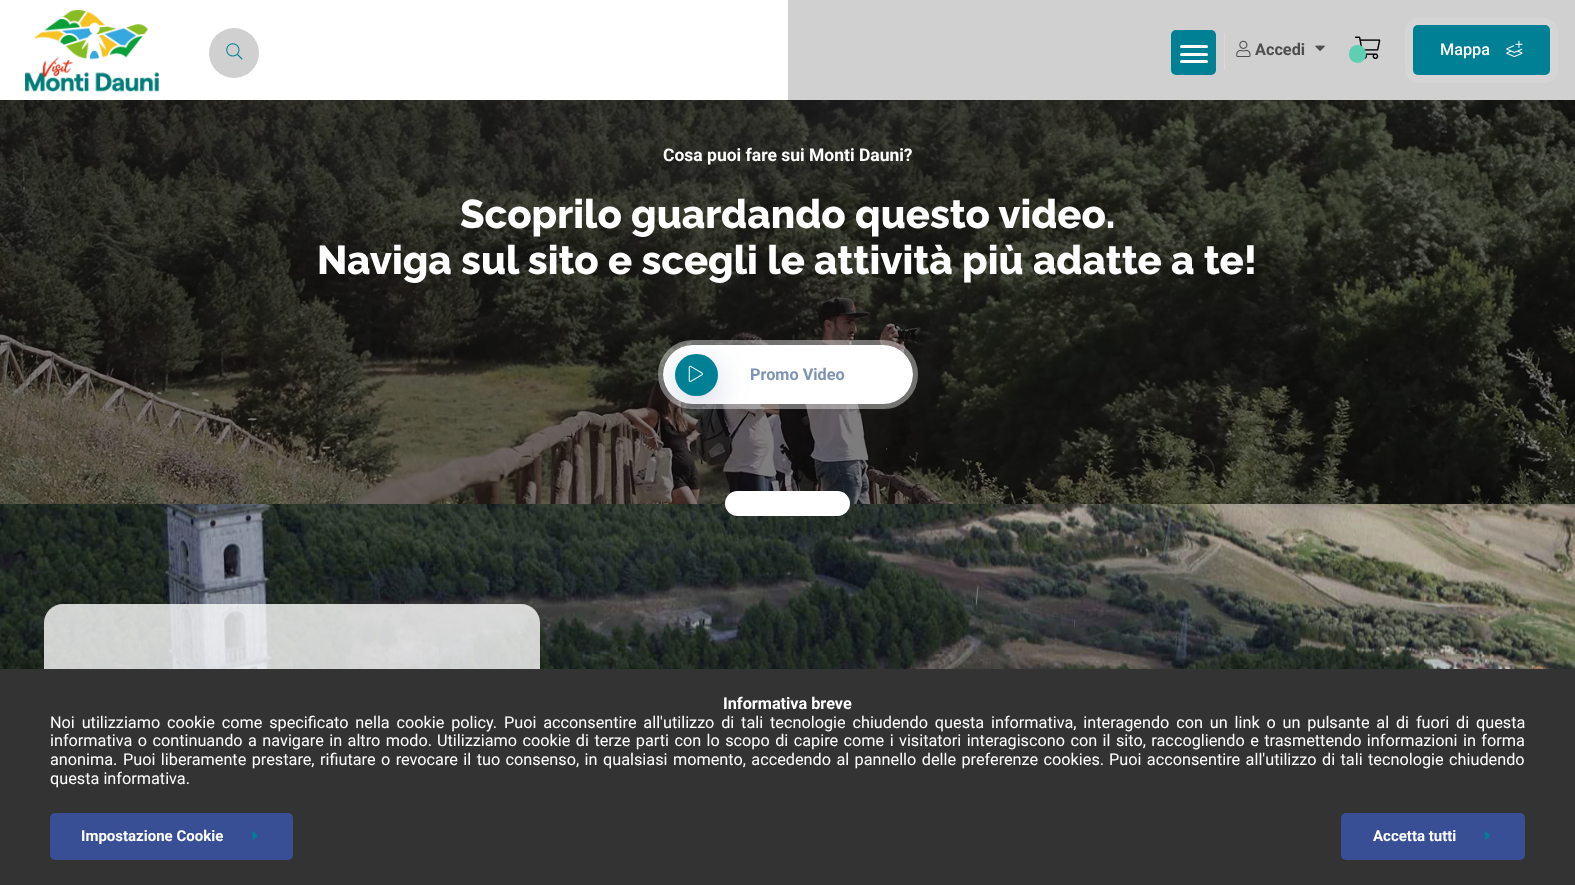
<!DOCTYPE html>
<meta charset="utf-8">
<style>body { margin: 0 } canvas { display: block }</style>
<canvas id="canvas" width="1575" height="885"></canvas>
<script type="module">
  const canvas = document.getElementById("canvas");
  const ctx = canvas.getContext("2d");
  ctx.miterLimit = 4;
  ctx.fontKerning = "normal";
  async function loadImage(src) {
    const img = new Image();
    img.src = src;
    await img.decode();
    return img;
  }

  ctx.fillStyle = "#ffffff";
  ctx.fillRect(0, 0, 1575, 885);
  ctx.drawImage(await loadImage("img1.png"), 25, 10, 134, 82);
  ctx.fillStyle = "#d0d0d0";
  ctx.beginPath();
  ctx.arc(234, 53, 25, 0, Math.PI * 2);
  ctx.fill();
  ctx.drawImage(await loadImage("img2.png"), 226, 43, 17, 17);
  ctx.fillRect(788, 0, 787, 100);
  ctx.fillStyle = "#008095";
  ctx.beginPath();
  ctx.roundRect(1171, 30, 45, 45, 5);
  ctx.fill();
  ctx.fillStyle = "#ffffff";
  ctx.beginPath();
  ctx.roundRect(1180, 45, 28, 3, 1.5);
  ctx.fill();
  ctx.beginPath();
  ctx.roundRect(1180, 53, 28, 3, 1.5);
  ctx.fill();
  ctx.beginPath();
  ctx.roundRect(1180, 60, 28, 3, 1.5);
  ctx.fill();
  ctx.fillStyle = "#dadada";
  ctx.fillRect(1224, 33, 1, 37);
  ctx.drawImage(await loadImage("img3.png"), 1236, 40, 15, 17);
  ctx.font = "bold 16.25px Roboto";
  ctx.fillStyle = "#4d4d4d";
  ctx.fillText("Accedi", 1255, 55);
  ctx.drawImage(await loadImage("img4.png"), 1315, 45, 10, 6);
  ctx.drawImage(await loadImage("img5.png"), 1355, 36, 26, 23);
  ctx.fillStyle = "#5ecfb1";
  ctx.beginPath();
  ctx.roundRect(1349, 45, 17, 18, 8.5);
  ctx.fill();
  ctx.beginPath();
  ctx.roundRect(1409, 22, 145, 57, 9);
  ctx.strokeStyle = "#d5d5d5";
  ctx.lineWidth = 8;
  ctx.stroke();
  ctx.fillStyle = "#008095";
  ctx.beginPath();
  ctx.roundRect(1413, 25, 137, 50, 5);
  ctx.fill();
  ctx.font = "500 16.25px Roboto";
  ctx.fillStyle = "#ffffff";
  ctx.fillText("Mappa", 1440, 55);
  ctx.drawImage(await loadImage("img6.png"), 1506, 40, 17, 17);
  ctx.drawImage(await loadImage("img7.png"), 0, 100, 1575, 404);
  ctx.font = "bold 17.5px Roboto";
  ctx.fillText("Cosa puoi fare sui Monti Dauni?", 663, 161);
  ctx.font = "800 40px Raleway";
  ctx.fillText("Scoprilo guardando questo video.", 460, 228);
  ctx.fillText("Naviga sul sito e scegli le attività più adatte a te!", 317, 274);
  ctx.beginPath();
  ctx.roundRect(660.5, 342.5, 255, 64, 32);
  ctx.strokeStyle = "rgba(255, 255, 255, 0.4)";
  ctx.lineWidth = 5;
  ctx.stroke();
  ctx.beginPath();
  ctx.roundRect(663, 345, 250, 59, 29.5);
  ctx.fill();
  ctx.fillStyle = "rgba(58, 87, 135, 0.25)";
  ctx.filter = "blur(16px)";
  ctx.beginPath();
  ctx.roundRect(675, 365, 43, 43, 21.5);
  ctx.fill();
  ctx.filter = "none";
  ctx.fillStyle = "#008095";
  ctx.beginPath();
  ctx.roundRect(675, 354, 43, 42, 21);
  ctx.fill();
  ctx.drawImage(await loadImage("img8.png"), 688, 365, 15, 17);
  ctx.font = "bold 16.25px Roboto";
  ctx.fillStyle = "#7d93b2";
  ctx.fillText("Promo Video", 750, 380);
  ctx.drawImage(await loadImage("img9.png"), 0, 504, 1575, 165);
  ctx.fillStyle = "#ffffff";
  ctx.beginPath();
  ctx.roundRect(725, 491, 125, 25, 12.5);
  ctx.fill();
  ctx.fillStyle = "rgba(255, 255, 255, 0.8)";
  ctx.beginPath();
  ctx.roundRect(44, 604, 496, 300, 19);
  ctx.fill();
  ctx.fillStyle = "#333333";
  ctx.fillRect(0, 669, 1575, 216);
  ctx.fillStyle = "#ffffff";
  ctx.fillText("Informativa breve", 723, 709);
  ctx.wordSpacing = "2.8px";
  ctx.font = "16.25px Roboto";
  ctx.fillText("Noi utilizziamo cookie come specificato nella cookie policy. Puoi acconsentire all'utilizzo di tali tecnologie chiudendo questa informativa, interagendo con un link o un pulsante al di fuori di questa", 50, 728);
  ctx.wordSpacing = "1.4px";
  ctx.fillText("informativa o continuando a navigare in altro modo.", 50, 746);
  ctx.fillText("Utilizziamo cookie di terze parti con lo scopo di capire come i visitatori interagiscono con il sito, raccogliendo e trasmettendo informazioni in forma", 437, 746);
  ctx.wordSpacing = "0px";
  ctx.fillText("anonima.", 50, 765);
  ctx.wordSpacing = "1.4px";
  ctx.fillText("Puoi liberamente prestare, rifiutare o revocare il tuo consenso, in qualsiasi momento, accedendo al pannello delle preferenze cookies.", 123, 765);
  ctx.fillText("Puoi acconsentire all'utilizzo di tali tecnologie chiudendo", 1109, 765);
  ctx.wordSpacing = "0px";
  ctx.fillText("questa informativa.", 50, 784);
  ctx.fillStyle = "#384f95";
  ctx.beginPath();
  ctx.roundRect(50, 813, 243, 47, 5);
  ctx.fill();
  ctx.font = "bold 15px Roboto";
  ctx.fillStyle = "#ffffff";
  ctx.fillText("Impostazione Cookie", 81, 841);
  ctx.drawImage(await loadImage("img10.png"), 252, 831, 6, 9);
  ctx.fillStyle = "#384f95";
  ctx.beginPath();
  ctx.roundRect(1341, 813, 184, 47, 5);
  ctx.fill();
  ctx.fillStyle = "#ffffff";
  ctx.fillText("Accetta tutti", 1373, 841);
  ctx.drawImage(await loadImage("img11.png"), 1485, 831, 5, 9);
</script>
